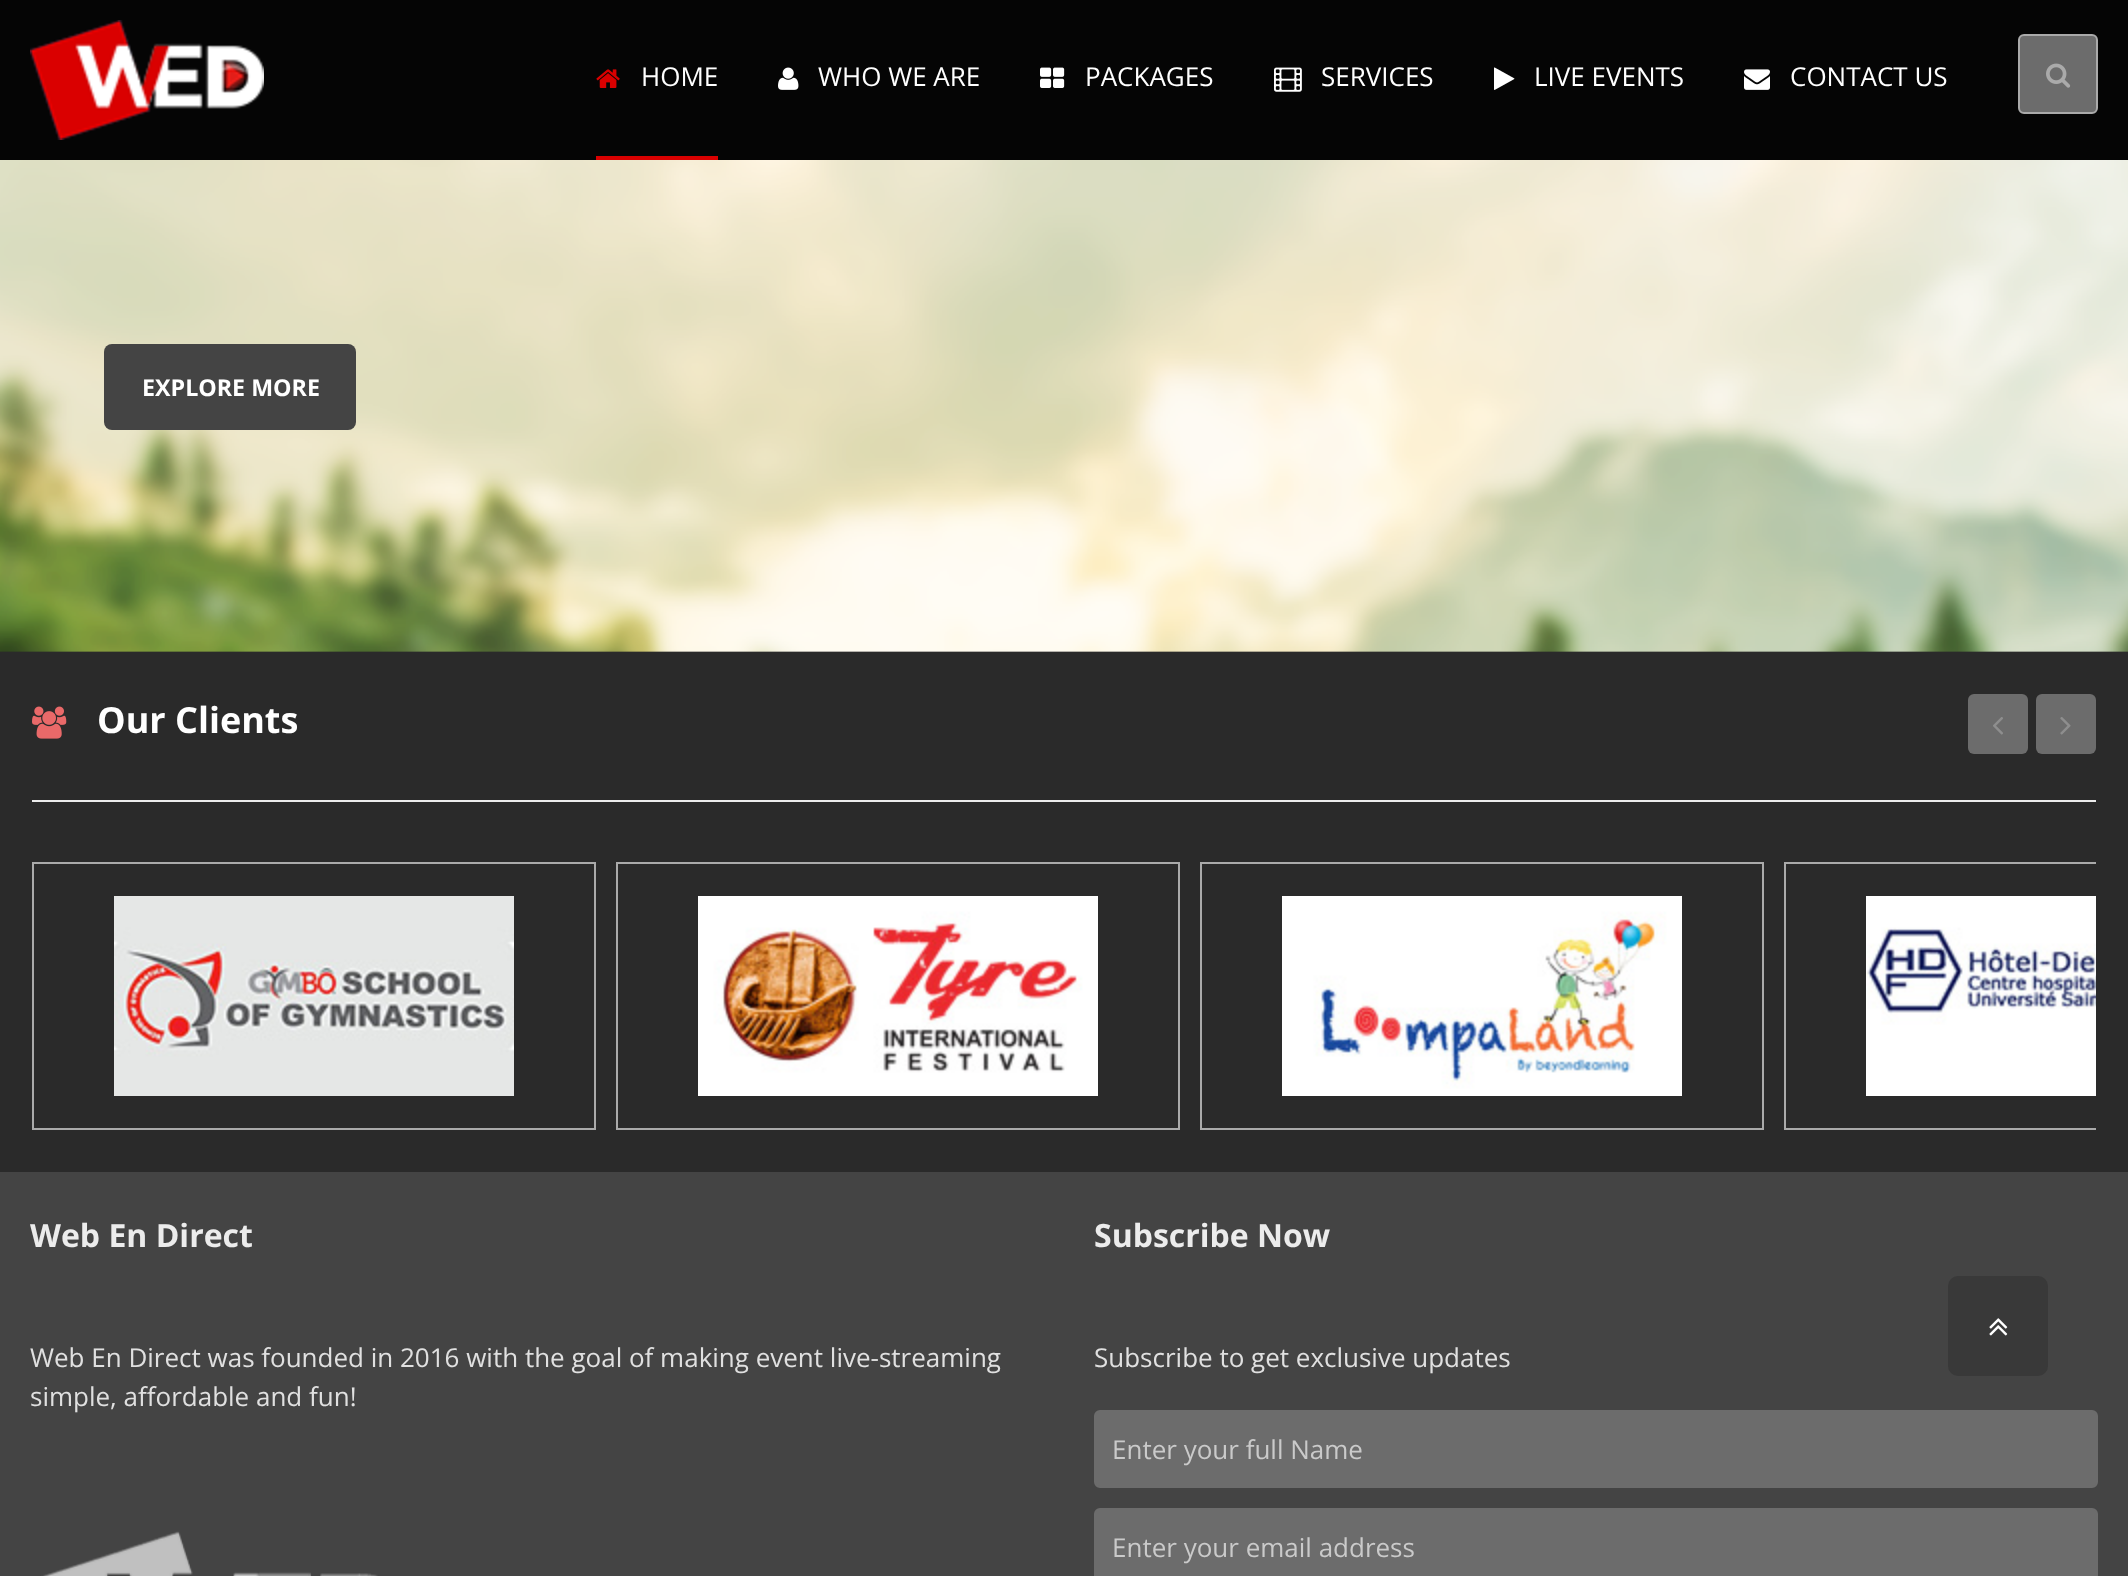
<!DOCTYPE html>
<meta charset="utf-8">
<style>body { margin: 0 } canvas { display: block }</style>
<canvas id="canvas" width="2128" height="1576"></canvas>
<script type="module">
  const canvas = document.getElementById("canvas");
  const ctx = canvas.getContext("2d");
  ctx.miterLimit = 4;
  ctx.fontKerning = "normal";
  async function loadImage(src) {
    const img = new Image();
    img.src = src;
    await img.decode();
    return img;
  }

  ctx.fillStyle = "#2a2a2a";
  ctx.fillRect(0, 0, 2128, 1576);
  ctx.fillStyle = "#050505";
  ctx.fillRect(0, 0, 2128, 160);
  ctx.drawImage(await loadImage("img1.png"), 30, 20, 234, 120);
  ctx.fillStyle = "#da0000";
  ctx.fillRect(596, 156, 122, 4);
  ctx.drawImage(await loadImage("img2.png"), 596, 69, 24, 19);
  ctx.font = "26px Open Sans";
  ctx.fillStyle = "#ffffff";
  ctx.fillText("HOME", 641, 86);
  ctx.drawImage(await loadImage("img3.png"), 778, 67, 21, 23);
  ctx.fillText("WHO WE ARE", 818, 86);
  ctx.drawImage(await loadImage("img4.png"), 1040, 67, 25, 21);
  ctx.fillText("PACKAGES", 1085, 86);
  ctx.drawImage(await loadImage("img5.png"), 1274, 67, 28, 25);
  ctx.fillText("SERVICES", 1321, 86);
  ctx.drawImage(await loadImage("img6.png"), 1494, 67, 21, 23);
  ctx.fillText("LIVE EVENTS", 1534, 86);
  ctx.drawImage(await loadImage("img7.png"), 1744, 69, 26, 21);
  ctx.fillText("CONTACT US", 1790, 86);
  ctx.fillStyle = "#6c6c6c";
  ctx.beginPath();
  ctx.roundRect(2019, 35, 78, 78, 5);
  ctx.fill();
  ctx.strokeStyle = "#aaaaaa";
  ctx.lineWidth = 2;
  ctx.stroke();
  ctx.drawImage(await loadImage("img8.png"), 2046, 63, 25, 25);
  ctx.drawImage(await loadImage("img9.png"), 0, 160, 2128, 492);
  ctx.fillStyle = "#444444";
  ctx.beginPath();
  ctx.roundRect(104, 344, 252, 86, 8);
  ctx.fill();
  ctx.font = "bold 23.25px Open Sans";
  ctx.fillStyle = "#ffffff";
  ctx.fillText("EXPLORE MORE", 142, 396);
  ctx.fillStyle = "#ececec";
  ctx.fillRect(32, 800, 2064, 2);
  ctx.drawImage(await loadImage("img10.png"), 32, 706, 35, 33);
  ctx.font = "bold 36px Open Sans";
  ctx.fillStyle = "#ffffff";
  ctx.fillText("Our Clients", 97, 733);
  ctx.fillStyle = "#6c6c6c";
  ctx.beginPath();
  ctx.roundRect(1968, 694, 60, 60, 6);
  ctx.fill();
  ctx.drawImage(await loadImage("img11.png"), 1993, 717, 10, 18);
  ctx.beginPath();
  ctx.roundRect(2036, 694, 60, 60, 6);
  ctx.fill();
  ctx.drawImage(await loadImage("img12.png"), 2060, 717, 11, 18);
  ctx.strokeRect(33, 863, 562, 266);
  ctx.drawImage(await loadImage("img13.png"), 114, 896, 400, 200);
  ctx.strokeRect(617, 863, 562, 266);
  ctx.drawImage(await loadImage("img14.png"), 698, 896, 400, 200);
  ctx.strokeRect(1201, 863, 562, 266);
  ctx.drawImage(await loadImage("img15.png"), 1282, 896, 400, 200);
  ctx.save();
  ctx.beginPath();
  ctx.rect(32, 862, 2064, 268);
  ctx.clip();
  ctx.strokeRect(1785, 863, 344, 266);
  ctx.restore();
  ctx.drawImage(await loadImage("img16.png"), 1866, 896, 230, 200);
  ctx.fillStyle = "#444444";
  ctx.fillRect(0, 1172, 2128, 404);
  ctx.font = "bold 32px Open Sans";
  ctx.fillStyle = "#ececec";
  ctx.fillText("Web En Direct", 30, 1247);
  ctx.font = "26px Open Sans";
  ctx.fillStyle = "#e0e0e0";
  ctx.fillText("Web En Direct was founded in 2016 with the goal of making event live-streaming", 30, 1367);
  ctx.fillText("simple, affordable and fun!", 30, 1406);
  ctx.drawImage(await loadImage("img17.png"), 41, 1531, 337, 45);
  ctx.font = "bold 32px Open Sans";
  ctx.fillStyle = "#ececec";
  ctx.fillText("Subscribe Now", 1094, 1247);
  ctx.font = "26px Open Sans";
  ctx.fillStyle = "#e0e0e0";
  ctx.fillText("Subscribe to get exclusive updates", 1094, 1367);
  ctx.fillStyle = "#6c6c6c";
  ctx.beginPath();
  ctx.roundRect(1095, 1411, 1002, 76, 5);
  ctx.fill();
  ctx.strokeStyle = "#6c6c6c";
  ctx.stroke();
  ctx.fillStyle = "#cacaca";
  ctx.fillText("Enter your full Name", 1112, 1459);
  ctx.fillStyle = "#6c6c6c";
  ctx.beginPath();
  ctx.roundRect(1095, 1509, 1002, 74, 5);
  ctx.fill();
  ctx.stroke();
  ctx.fillStyle = "#cacaca";
  ctx.fillText("Enter your email address", 1112, 1557);
  ctx.fillStyle = "#393939";
  ctx.beginPath();
  ctx.roundRect(1948, 1276, 100, 100, 10);
  ctx.fill();
  ctx.drawImage(await loadImage("img18.png"), 1989, 1318, 19, 18);
</script>
